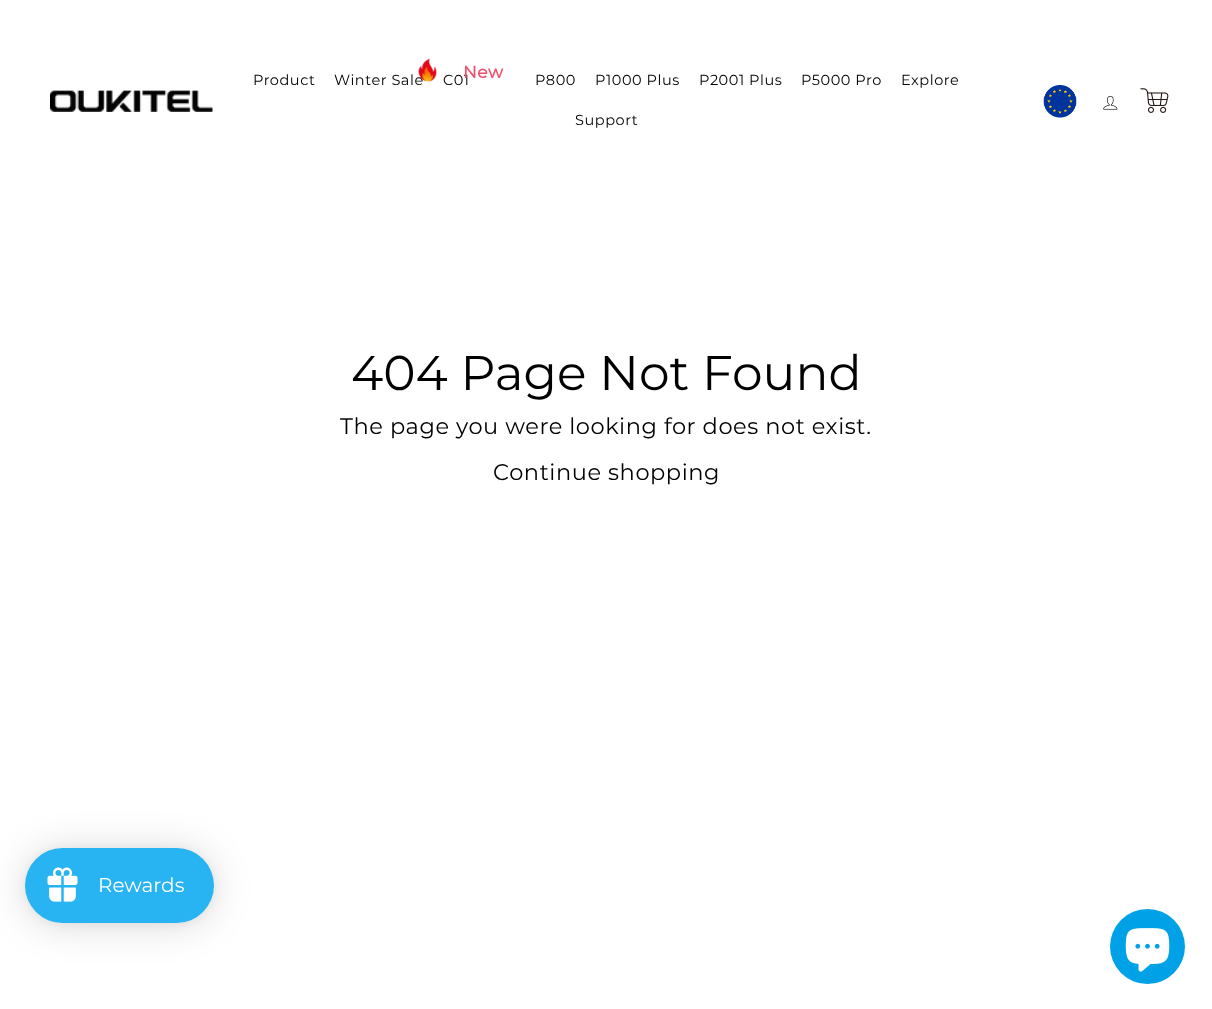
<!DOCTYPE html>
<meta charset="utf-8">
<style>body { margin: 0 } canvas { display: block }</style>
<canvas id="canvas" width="1212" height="1009"></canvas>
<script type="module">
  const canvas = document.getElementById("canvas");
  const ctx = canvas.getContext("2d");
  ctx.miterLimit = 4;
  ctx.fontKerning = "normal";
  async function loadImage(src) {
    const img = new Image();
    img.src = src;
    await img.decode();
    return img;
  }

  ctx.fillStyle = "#ffffff";
  ctx.fillRect(0, 0, 1212, 1009);
  ctx.fillStyle = "rgba(0, 0, 0, 0.2)";
  ctx.filter = "blur(0.5px)";
  ctx.beginPath();
  ctx.rect(0, 46, 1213, 109);
  ctx.fill();
  ctx.filter = "none";
  ctx.fillStyle = "#ffffff";
  ctx.fillRect(0, 46, 1212, 109);
  ctx.drawImage(await loadImage("img1.png"), 50, 90, 163, 22);
  ctx.letterSpacing = "0.55px";
  ctx.font = "14.5px Montserrat";
  ctx.fillStyle = "#000000";
  ctx.fillText("Product", 253, 85);
  ctx.fillText("Winter Sale", 334, 85);
  ctx.drawImage(await loadImage("img2.png"), 418, 58, 19, 24);
  ctx.fillText("C01", 443, 85);
  ctx.font = "bold 17px Montserrat";
  ctx.fillStyle = "#f0506e";
  ctx.fillText("New", 463, 78);
  ctx.font = "14.5px Montserrat";
  ctx.fillStyle = "#000000";
  ctx.fillText("P800", 535, 85);
  ctx.fillText("P1000 Plus", 595, 85);
  ctx.fillText("P2001 Plus", 699, 85);
  ctx.fillText("P5000 Pro", 801, 85);
  ctx.fillText("Explore", 901, 85);
  ctx.fillText("Support", 575, 125);
  ctx.drawImage(await loadImage("img3.png"), 1043, 85, 34, 33);
  ctx.drawImage(await loadImage("img4.png"), 1103, 96, 15, 14);
  ctx.drawImage(await loadImage("img5.png"), 1140, 88, 29, 25);
  ctx.letterSpacing = "0px";
  ctx.font = "48.75px Montserrat";
  ctx.fillText("404 Page Not Found", 351, 390);
  ctx.letterSpacing = "0.55px";
  ctx.font = "22.5px Montserrat";
  ctx.fillText("The page you were looking for does not exist.", 340, 434);
  ctx.fillText("Continue shopping", 493, 480);
  ctx.fillStyle = "rgba(0, 0, 0, 0.15)";
  ctx.filter = "blur(19px)";
  ctx.beginPath();
  ctx.roundRect(25, 850, 189, 75, 37.5);
  ctx.fill();
  ctx.filter = "none";
  ctx.fillStyle = "rgba(0, 0, 0, 0.05)";
  ctx.filter = "blur(4px)";
  ctx.beginPath();
  ctx.roundRect(25, 849, 189, 75, 37.5);
  ctx.fill();
  ctx.filter = "none";
  ctx.fillStyle = "#28b4f2";
  ctx.beginPath();
  ctx.roundRect(25, 848, 189, 75, 37.5);
  ctx.fill();
  ctx.drawImage(await loadImage("img6.png"), 47, 867, 31, 35);
  ctx.letterSpacing = "0px";
  ctx.font = "100 20px Montserrat";
  ctx.fillStyle = "#ffffff";
  ctx.fillText("Rewards", 98, 892);
  ctx.fillStyle = "#00a1e7";
  ctx.beginPath();
  ctx.arc(1147.5, 946.5, 37.5, 0, Math.PI * 2);
  ctx.fill();
  ctx.drawImage(await loadImage("img7.png"), 1125, 928, 45, 44);
</script>
